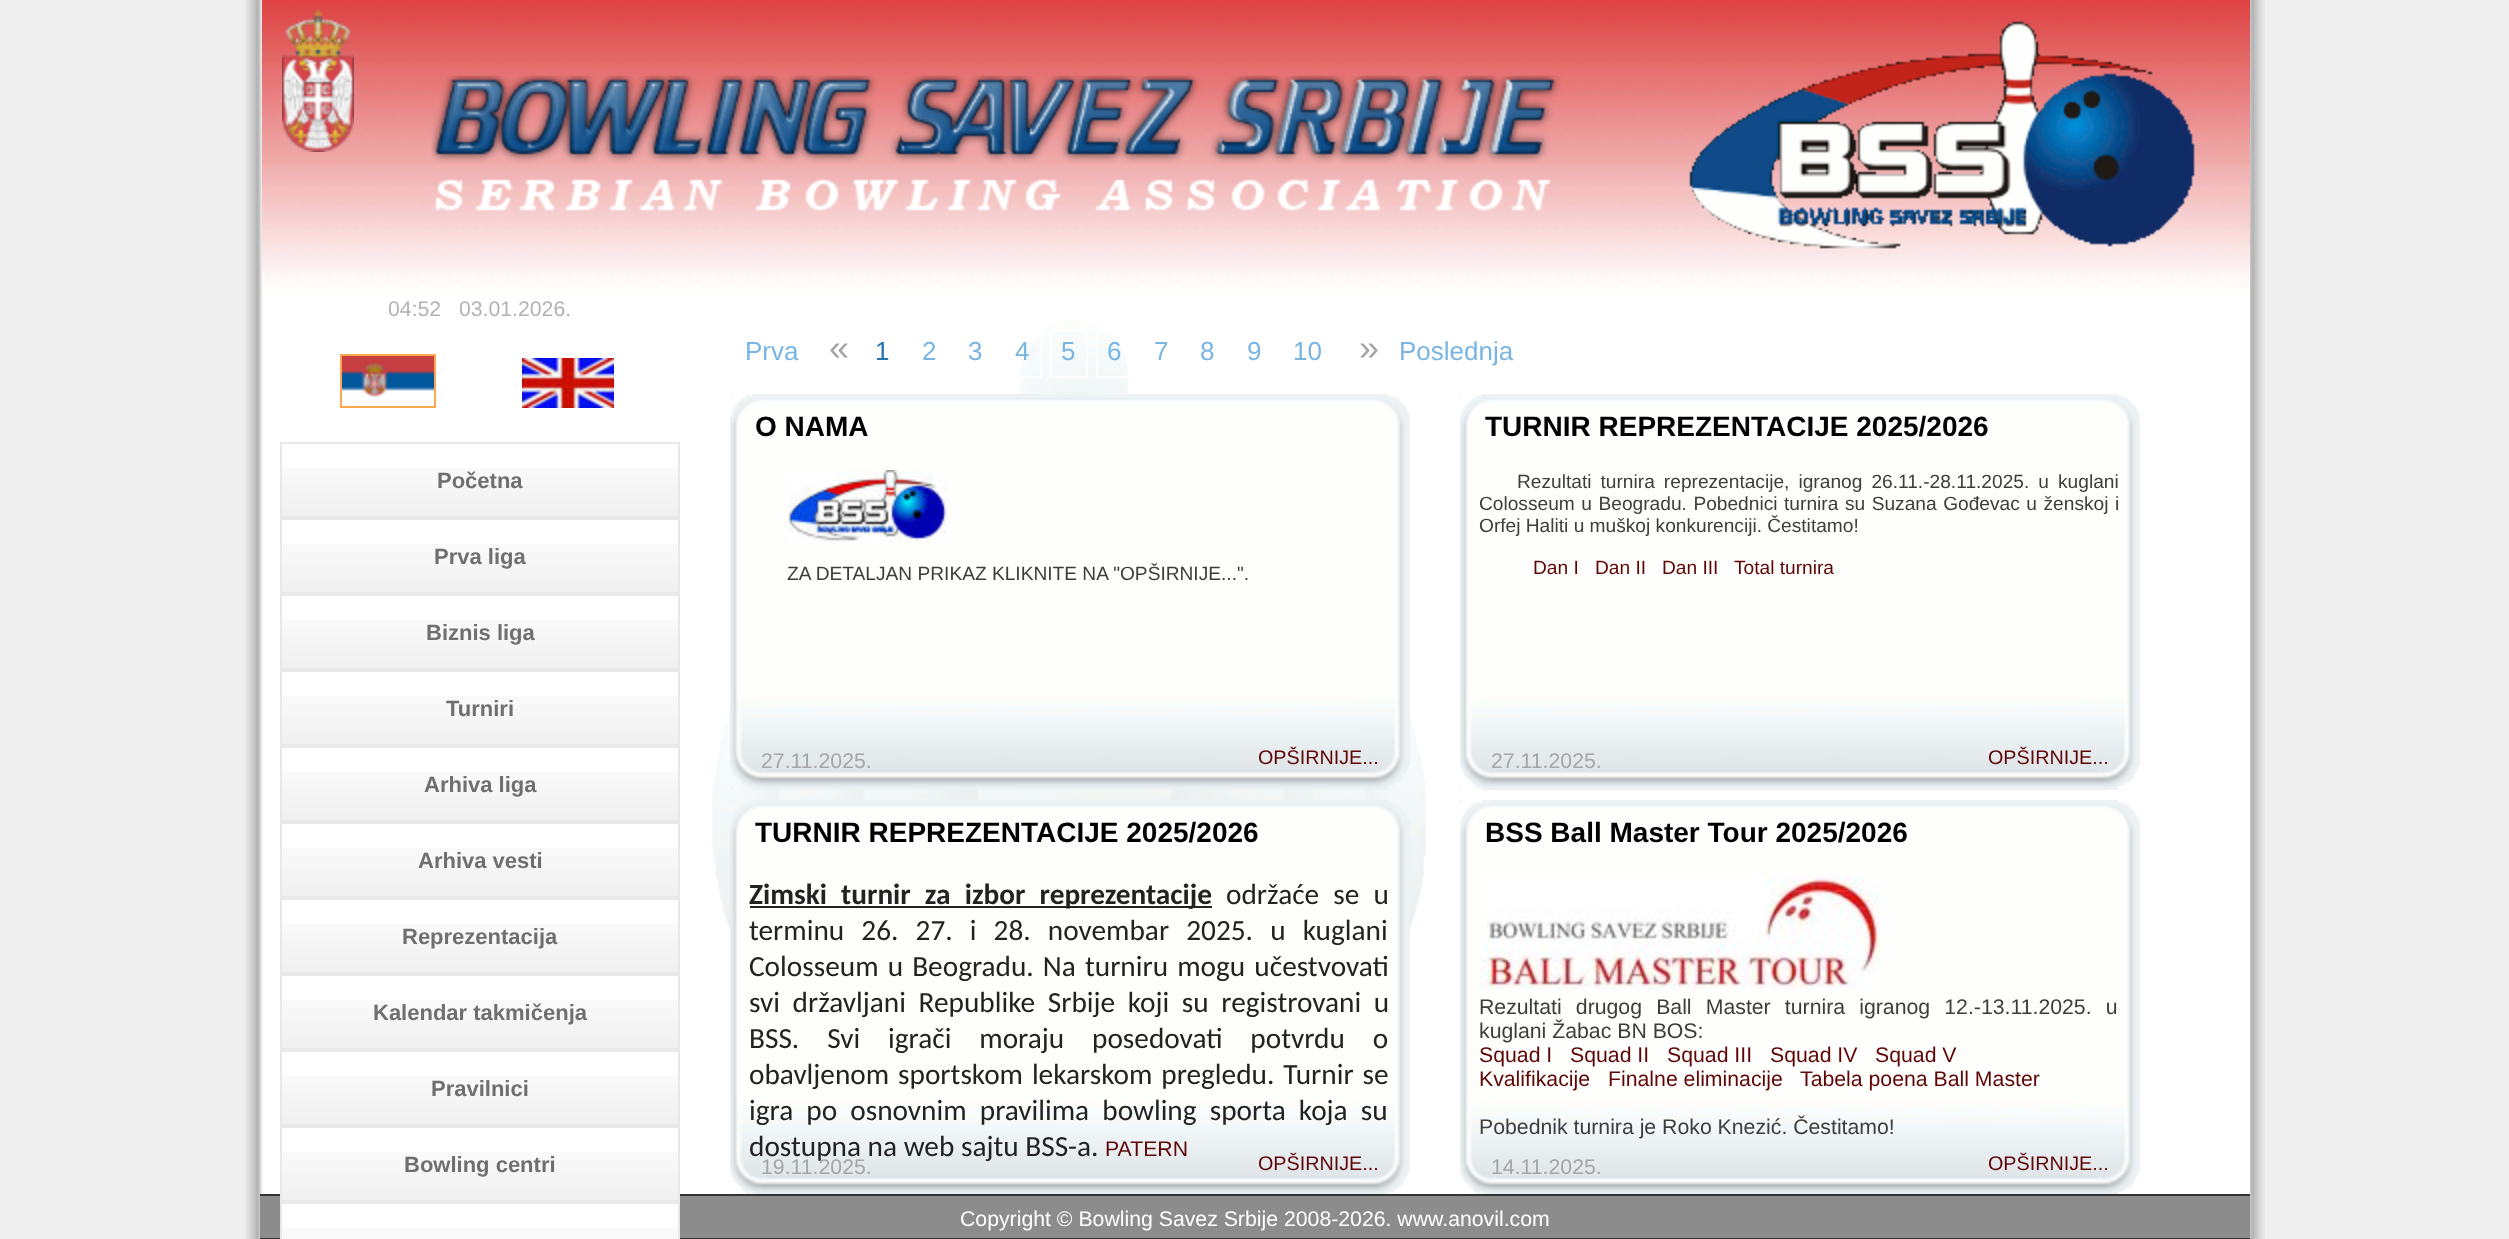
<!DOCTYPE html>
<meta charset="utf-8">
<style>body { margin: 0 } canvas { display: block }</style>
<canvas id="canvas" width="2509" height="1239"></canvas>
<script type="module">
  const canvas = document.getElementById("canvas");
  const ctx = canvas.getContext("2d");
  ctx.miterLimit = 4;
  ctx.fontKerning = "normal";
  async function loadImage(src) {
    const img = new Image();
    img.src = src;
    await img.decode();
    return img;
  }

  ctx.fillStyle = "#efefef";
  ctx.fillRect(0, 0, 2509, 1239);
  ctx.drawImage(await loadImage("img1.png"), 245, 0, 2020, 1239);
  ctx.drawImage(await loadImage("img2.png"), 262, 0, 1988, 296);
  ctx.drawImage(await loadImage("img3.png"), 282, 10, 72, 142);
  ctx.drawImage(await loadImage("img4.png"), 431, 21, 1764, 228);
  ctx.font = "21.25px Liberation Sans";
  ctx.fillStyle = "#b2b2b2";
  ctx.fillText("04:52   03.01.2026.", 388, 316);
  ctx.strokeStyle = "#ffa850";
  ctx.lineWidth = 2;
  ctx.strokeRect(341, 355, 94, 52);
  ctx.drawImage(await loadImage("img5.png"), 342, 356, 92, 41);
  ctx.drawImage(await loadImage("img6.png"), 522, 358, 92, 50);
  ctx.drawImage(await loadImage("img7.png"), 282, 468, 396, 48);
  ctx.strokeStyle = "#e8e8e8";
  ctx.strokeRect(281, 443, 398, 74);
  ctx.font = "bold 22px Liberation Sans";
  ctx.fillStyle = "#6f6f6f";
  ctx.fillText("Početna", 437, 488);
  ctx.drawImage(await loadImage("img7.png"), 282, 544, 396, 48);
  ctx.strokeRect(281, 519, 398, 74);
  ctx.fillText("Prva liga", 434, 564);
  ctx.drawImage(await loadImage("img7.png"), 282, 620, 396, 48);
  ctx.strokeRect(281, 595, 398, 74);
  ctx.fillText("Biznis liga", 426, 640);
  ctx.drawImage(await loadImage("img7.png"), 282, 696, 396, 48);
  ctx.strokeRect(281, 671, 398, 74);
  ctx.fillText("Turniri", 446, 716);
  ctx.drawImage(await loadImage("img7.png"), 282, 772, 396, 48);
  ctx.strokeRect(281, 747, 398, 74);
  ctx.fillText("Arhiva liga", 424, 792);
  ctx.drawImage(await loadImage("img7.png"), 282, 848, 396, 48);
  ctx.strokeRect(281, 823, 398, 74);
  ctx.fillText("Arhiva vesti", 418, 868);
  ctx.drawImage(await loadImage("img7.png"), 282, 924, 396, 48);
  ctx.strokeRect(281, 899, 398, 74);
  ctx.fillText("Reprezentacija", 402, 944);
  ctx.drawImage(await loadImage("img7.png"), 282, 1000, 396, 48);
  ctx.strokeRect(281, 975, 398, 74);
  ctx.fillText("Kalendar takmičenja", 373, 1020);
  ctx.drawImage(await loadImage("img7.png"), 282, 1076, 396, 48);
  ctx.strokeRect(281, 1051, 398, 74);
  ctx.fillText("Pravilnici", 431, 1096);
  ctx.fillStyle = "#8c8c8c";
  ctx.fillRect(260, 1196, 1990, 42);
  ctx.fillStyle = "#333333";
  ctx.fillRect(260, 1194, 1990, 2);
  ctx.drawImage(await loadImage("img7.png"), 282, 1152, 396, 48);
  ctx.strokeRect(281, 1127, 398, 74);
  ctx.fillStyle = "#6f6f6f";
  ctx.fillText("Bowling centri", 404, 1172);
  ctx.fillStyle = "#ffffff";
  ctx.fillRect(282, 1204, 396, 24);
  ctx.fillStyle = "#333333";
  ctx.fillRect(260, 1238, 1990, 1);
  ctx.fillStyle = "#f9f9f9";
  ctx.fillRect(282, 1228, 396, 11);
  ctx.strokeRect(281, 1203, 398, 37);
  ctx.fillStyle = "#ffffff";
  ctx.fillRect(2247, 296, 3, 898);
  ctx.drawImage(await loadImage("img8.png"), 711, 321, 715, 610);
  ctx.font = "26px Liberation Sans";
  ctx.fillStyle = "#79b5e3";
  ctx.fillText("Prva", 745, 360);
  ctx.font = "36px Liberation Sans";
  ctx.fillStyle = "#a5a5a5";
  ctx.fillText("«", 829, 360);
  ctx.font = "26px Liberation Sans";
  ctx.fillStyle = "#2573af";
  ctx.fillText("1", 875, 360);
  ctx.fillStyle = "#79b5e3";
  ctx.fillText("2", 922, 360);
  ctx.fillText("3", 968, 360);
  ctx.strokeStyle = "#ffffff";
  ctx.strokeRect(1003, 331, 38, 46);
  ctx.fillText("4", 1015, 360);
  ctx.strokeRect(1051, 331, 36, 46);
  ctx.fillText("5", 1061, 360);
  ctx.strokeRect(1097, 331, 36, 46);
  ctx.fillText("6", 1107, 360);
  ctx.fillText("7", 1154, 360);
  ctx.fillText("8", 1200, 360);
  ctx.fillText("9", 1247, 360);
  ctx.fillText("10", 1293, 360);
  ctx.strokeRect(865, 387, 50, 46);
  ctx.font = "36px Liberation Sans";
  ctx.fillStyle = "#a5a5a5";
  ctx.fillText("»", 1359, 360);
  ctx.font = "26px Liberation Sans";
  ctx.fillStyle = "#79b5e3";
  ctx.fillText("Poslednja", 1399, 360);
  ctx.drawImage(await loadImage("img9.png"), 730, 394, 680, 396);
  ctx.font = "bold 28px Liberation Sans";
  ctx.fillStyle = "#000000";
  ctx.fillText("O NAMA", 755, 436);
  ctx.drawImage(await loadImage("img10.png"), 788, 470, 160, 72);
  ctx.font = "19.15px Liberation Sans";
  ctx.fillStyle = "#3d3d3d";
  ctx.fillText("ZA DETALJAN PRIKAZ KLIKNITE NA \"OPŠIRNIJE...\".", 787, 580);
  ctx.font = "21.25px Liberation Sans";
  ctx.fillStyle = "#a5a5a5";
  ctx.fillText("27.11.2025.", 761, 768);
  ctx.font = "19.75px Liberation Sans";
  ctx.fillStyle = "#5e0507";
  ctx.fillText("OPŠIRNIJE...", 1258, 764);
  ctx.drawImage(await loadImage("img11.png"), 1460, 394, 680, 396);
  ctx.font = "bold 28px Liberation Sans";
  ctx.fillStyle = "#000000";
  ctx.fillText("TURNIR REPREZENTACIJE 2025/2026", 1485, 436);
  ctx.wordSpacing = "3.75px";
  ctx.font = "19.15px Liberation Sans";
  ctx.fillStyle = "#3d3d3d";
  ctx.fillText("Rezultati turnira reprezentacije, igranog 26.11.-28.11.2025. u kuglani", 1517, 488);
  ctx.wordSpacing = "1.25px";
  ctx.fillText("Colosseum u Beogradu. Pobednici turnira su Suzana Gođevac u ženskoj i", 1479, 510);
  ctx.wordSpacing = "0px";
  ctx.fillText("Orfej Haliti u muškoj konkurenciji. Čestitamo!", 1479, 532);
  ctx.fillStyle = "#5e0507";
  ctx.fillText("Dan I", 1533, 574);
  ctx.fillText("Dan II", 1595, 574);
  ctx.fillText("Dan III", 1662, 574);
  ctx.fillText("Total turnira", 1734, 574);
  ctx.font = "21.25px Liberation Sans";
  ctx.fillStyle = "#a5a5a5";
  ctx.fillText("27.11.2025.", 1491, 768);
  ctx.font = "19.75px Liberation Sans";
  ctx.fillStyle = "#5e0507";
  ctx.fillText("OPŠIRNIJE...", 1988, 764);
  ctx.drawImage(await loadImage("img12.png"), 730, 800, 680, 394);
  ctx.font = "bold 28px Liberation Sans";
  ctx.fillStyle = "#000000";
  ctx.fillText("TURNIR REPREZENTACIJE 2025/2026", 755, 842);
  ctx.fillStyle = "#222222";
  ctx.fillRect(750, 906, 462, 2);
  ctx.wordSpacing = "7.5px";
  ctx.font = "bold 29.3px Carlito";
  ctx.fillText("Zimski turnir za izbor reprezentacije", 749, 904);
  ctx.font = "29.3px Carlito";
  ctx.fillText("održaće se u", 1226, 904);
  ctx.wordSpacing = "10.5px";
  ctx.fillText("terminu 26. 27. i 28. novembar 2025. u kuglani", 749, 940);
  ctx.wordSpacing = "2.5px";
  ctx.fillText("Colosseum u Beogradu. Na turniru mogu učestvovati", 749, 976);
  ctx.wordSpacing = "6px";
  ctx.fillText("svi državljani Republike Srbije koji su registrovani u", 749, 1012);
  ctx.wordSpacing = "21.25px";
  ctx.fillText("BSS. Svi igrači moraju posedovati potvrdu o", 749, 1048);
  ctx.wordSpacing = "2.25px";
  ctx.fillText("obavljenom sportskom lekarskom pregledu. Turnir se", 749, 1084);
  ctx.wordSpacing = "6.5px";
  ctx.fillText("igra po osnovnim pravilima bowling sporta koja su", 749, 1120);
  ctx.wordSpacing = "0px";
  ctx.fillText("dostupna na web sajtu BSS-a.", 749, 1156);
  ctx.font = "21.25px Liberation Sans";
  ctx.fillStyle = "#5e0507";
  ctx.fillText("PATERN", 1105, 1156);
  ctx.fillStyle = "#a5a5a5";
  ctx.fillText("19.11.2025.", 761, 1174);
  ctx.font = "19.75px Liberation Sans";
  ctx.fillStyle = "#5e0507";
  ctx.fillText("OPŠIRNIJE...", 1258, 1170);
  ctx.drawImage(await loadImage("img13.png"), 1460, 800, 680, 394);
  ctx.font = "bold 28px Liberation Sans";
  ctx.fillStyle = "#000000";
  ctx.fillText("BSS Ball Master Tour 2025/2026", 1485, 842);
  ctx.drawImage(await loadImage("img14.png"), 1480, 876, 400, 114);
  ctx.wordSpacing = "8.25px";
  ctx.font = "21.25px Liberation Sans";
  ctx.fillStyle = "#3d3d3d";
  ctx.fillText("Rezultati drugog Ball Master turnira igranog 12.-13.11.2025. u", 1479, 1014);
  ctx.wordSpacing = "0px";
  ctx.fillText("kuglani Žabac BN BOS:", 1479, 1038);
  ctx.fillStyle = "#5e0507";
  ctx.fillText("Squad I", 1479, 1062);
  ctx.fillText("Squad II", 1570, 1062);
  ctx.fillText("Squad III", 1667, 1062);
  ctx.fillText("Squad IV", 1770, 1062);
  ctx.fillText("Squad V", 1875, 1062);
  ctx.fillText("Kvalifikacije", 1479, 1086);
  ctx.fillText("Finalne eliminacije", 1608, 1086);
  ctx.fillText("Tabela poena Ball Master", 1800, 1086);
  ctx.fillStyle = "#3d3d3d";
  ctx.fillText("Pobednik turnira je Roko Knezić. Čestitamo!", 1479, 1134);
  ctx.fillStyle = "#a5a5a5";
  ctx.fillText("14.11.2025.", 1491, 1174);
  ctx.font = "19.75px Liberation Sans";
  ctx.fillStyle = "#5e0507";
  ctx.fillText("OPŠIRNIJE...", 1988, 1170);
  ctx.font = "21.25px Liberation Sans";
  ctx.fillStyle = "#ffffff";
  ctx.fillText("Copyright © Bowling Savez Srbije 2008-2026. www.anovil.com", 960, 1226);
</script>
